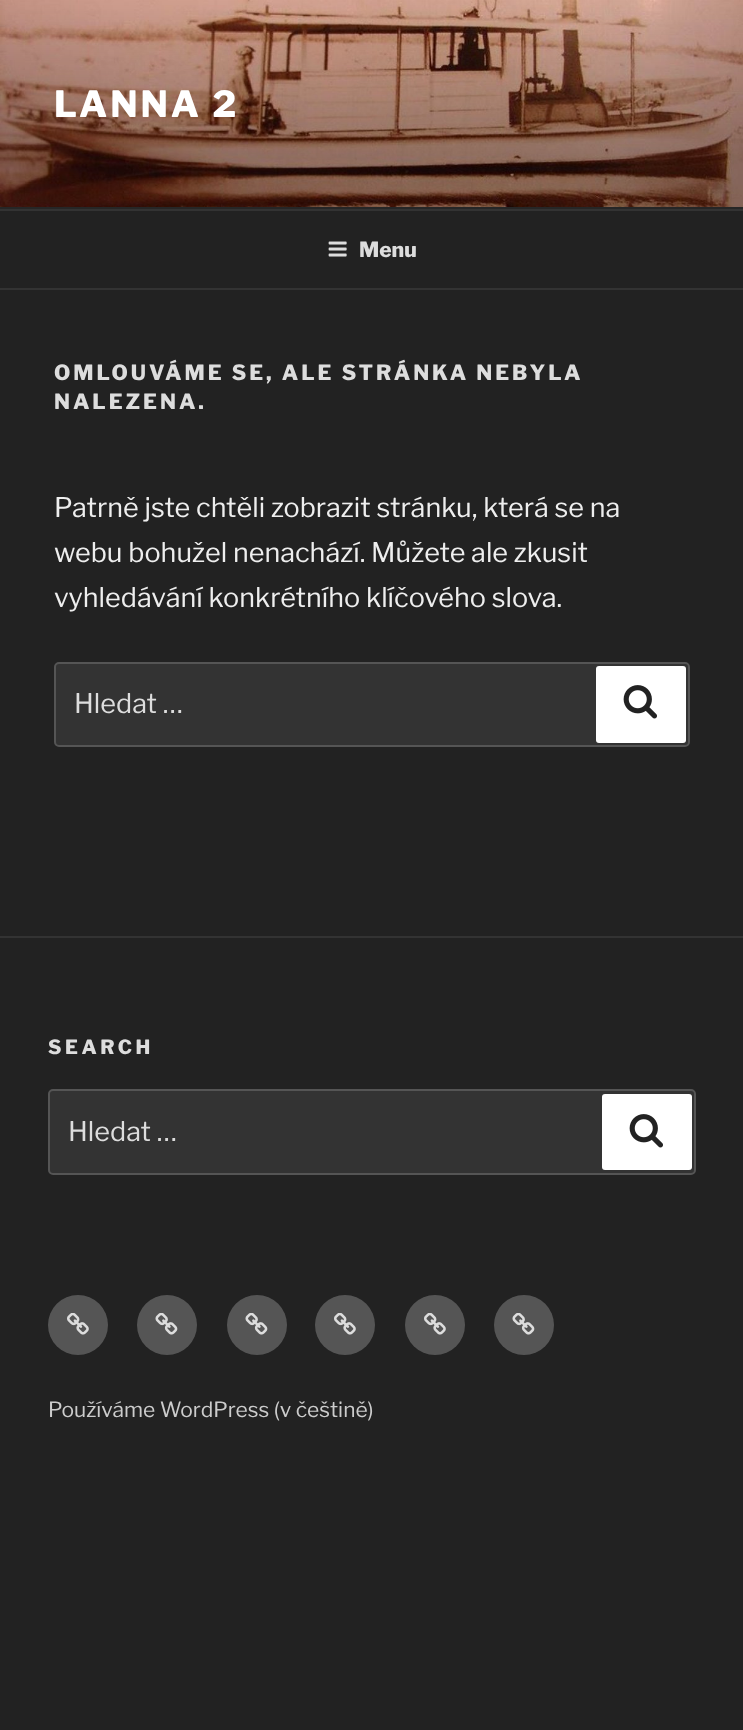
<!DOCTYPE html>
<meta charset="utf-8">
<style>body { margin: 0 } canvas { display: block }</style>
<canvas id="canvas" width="743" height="1730"></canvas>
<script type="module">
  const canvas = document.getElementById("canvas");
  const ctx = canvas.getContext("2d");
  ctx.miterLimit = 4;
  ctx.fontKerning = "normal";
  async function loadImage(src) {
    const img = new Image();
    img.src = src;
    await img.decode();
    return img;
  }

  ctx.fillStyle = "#222222";
  ctx.fillRect(0, 0, 743, 1730);
  ctx.fillStyle = "#262626";
  ctx.fillRect(0, 207, 743, 2);
  ctx.drawImage(await loadImage("img1.png"), 0, 0, 743, 207);
  ctx.letterSpacing = "3px";
  ctx.font = "800 36px Libre Franklin";
  ctx.fillStyle = "#ffffff";
  ctx.fillText("LANNA 2", 54, 117);
  ctx.fillStyle = "#333333";
  ctx.fillRect(0, 209, 743, 2);
  ctx.fillRect(0, 288, 743, 2);
  ctx.drawImage(await loadImage("img2.png"), 328, 241, 19, 16);
  ctx.letterSpacing = "0px";
  ctx.font = "800 21px Libre Franklin";
  ctx.fillStyle = "#dddddd";
  ctx.fillText("Menu", 359, 257);
  ctx.letterSpacing = "2.95px";
  ctx.fillText("OMLOUVÁME SE, ALE STRÁNKA NEBYLA", 54, 380);
  ctx.fillText("NALEZENA.", 54, 409);
  ctx.letterSpacing = "0px";
  ctx.font = "27px Libre Franklin";
  ctx.fillStyle = "#eeeeee";
  ctx.fillText("Patrně jste chtěli zobrazit stránku, která se na", 54, 517);
  ctx.fillText("webu bohužel nenachází. Můžete ale zkusit", 54, 562);
  ctx.fillText("vyhledávání konkrétního klíčového slova.", 54, 607);
  ctx.fillStyle = "#333333";
  ctx.beginPath();
  ctx.roundRect(55, 663, 634, 83, 4);
  ctx.fill();
  ctx.strokeStyle = "#555555";
  ctx.lineWidth = 2;
  ctx.stroke();
  ctx.fillStyle = "#dddddd";
  ctx.fillText("Hledat …", 74, 713);
  ctx.fillStyle = "#ffffff";
  ctx.beginPath();
  ctx.roundRect(596, 666, 90, 77, 3);
  ctx.fill();
  ctx.drawImage(await loadImage("img3.png"), 623, 685, 34, 34);
  ctx.fillStyle = "#333333";
  ctx.fillRect(0, 936, 743, 2);
  ctx.letterSpacing = "3.5px";
  ctx.font = "800 19.5px Libre Franklin";
  ctx.fillStyle = "#dddddd";
  ctx.fillText("SEARCH", 48, 1054);
  ctx.fillStyle = "#333333";
  ctx.beginPath();
  ctx.roundRect(49, 1090, 646, 84, 4);
  ctx.fill();
  ctx.stroke();
  ctx.letterSpacing = "0px";
  ctx.font = "27px Libre Franklin";
  ctx.fillStyle = "#dddddd";
  ctx.fillText("Hledat …", 68, 1141);
  ctx.fillStyle = "#ffffff";
  ctx.beginPath();
  ctx.roundRect(602, 1094, 90, 76, 3);
  ctx.fill();
  ctx.drawImage(await loadImage("img3.png"), 629, 1114, 34, 34);
  ctx.fillStyle = "#555555";
  ctx.beginPath();
  ctx.arc(78, 1325, 30, 0, Math.PI * 2);
  ctx.fill();
  ctx.drawImage(await loadImage("img4.png"), 67, 1313, 22, 22);
  ctx.beginPath();
  ctx.arc(167, 1325, 30, 0, Math.PI * 2);
  ctx.fill();
  ctx.drawImage(await loadImage("img5.png"), 155, 1313, 23, 22);
  ctx.beginPath();
  ctx.arc(257, 1325, 30, 0, Math.PI * 2);
  ctx.fill();
  ctx.drawImage(await loadImage("img5.png"), 245, 1313, 23, 22);
  ctx.beginPath();
  ctx.arc(345, 1325, 30, 0, Math.PI * 2);
  ctx.fill();
  ctx.drawImage(await loadImage("img4.png"), 334, 1313, 22, 22);
  ctx.beginPath();
  ctx.arc(435, 1325, 30, 0, Math.PI * 2);
  ctx.fill();
  ctx.drawImage(await loadImage("img4.png"), 424, 1313, 22, 22);
  ctx.beginPath();
  ctx.arc(524, 1325, 30, 0, Math.PI * 2);
  ctx.fill();
  ctx.drawImage(await loadImage("img5.png"), 512, 1313, 23, 22);
  ctx.font = "21px Libre Franklin";
  ctx.fillStyle = "#cccccc";
  ctx.fillText("Používáme WordPress (v češtině)", 48, 1417);
</script>
